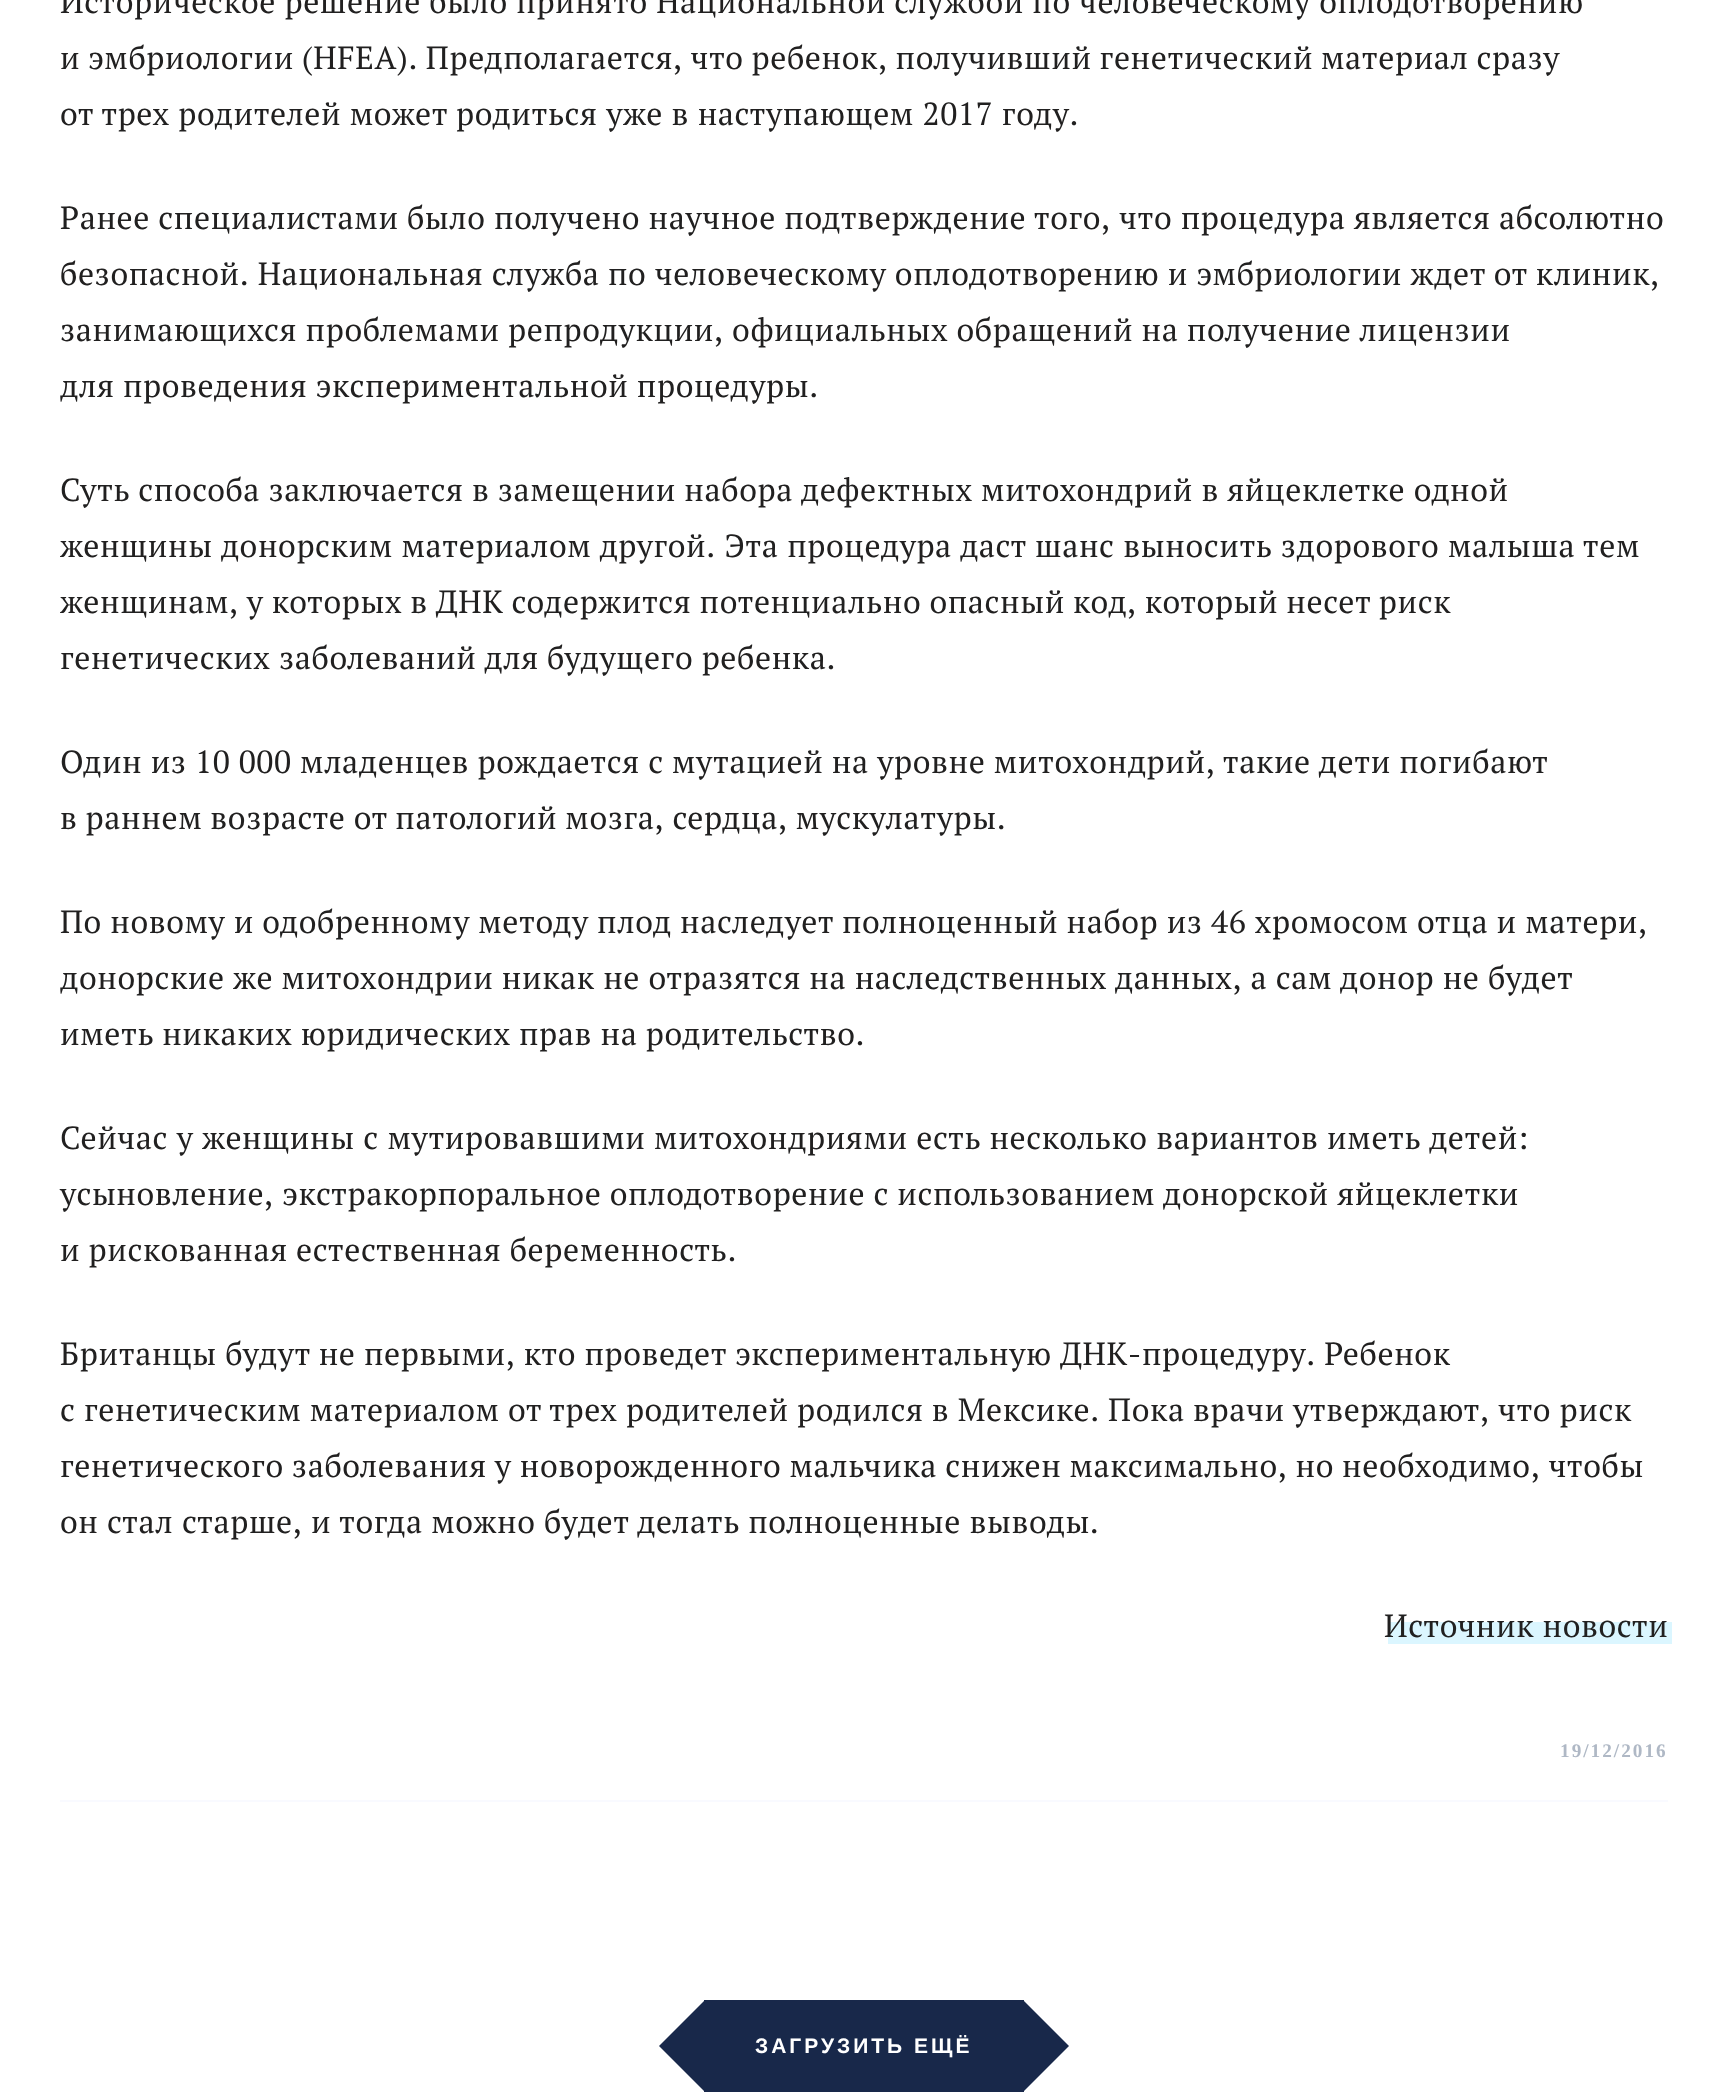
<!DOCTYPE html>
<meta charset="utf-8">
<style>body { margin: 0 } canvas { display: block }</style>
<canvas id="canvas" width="1727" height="2092"></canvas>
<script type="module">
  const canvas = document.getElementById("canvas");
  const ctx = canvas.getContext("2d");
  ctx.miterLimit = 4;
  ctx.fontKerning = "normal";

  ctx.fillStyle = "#ffffff";
  ctx.fillRect(0, 0, 1727, 2092);
  ctx.fillStyle = "#f9faff";
  ctx.fillRect(60, 1800, 1608, 2);
  ctx.letterSpacing = "0.6px";
  ctx.font = "32px PT Serif";
  ctx.fillStyle = "#212020";
  ctx.fillText("Историческое решение было принято Национальной службой по человеческому оплодотворению", 60, 13);
  ctx.wordSpacing = "-0.5px";
  ctx.fillText("и эмбриологии (HFEA). Предполагается, что ребенок, получивший генетический материал сразу", 60, 69);
  ctx.wordSpacing = "0.25px";
  ctx.fillText("от трех родителей может родиться уже в наступающем 2017 году.", 60, 125);
  ctx.wordSpacing = "0px";
  ctx.fillText("Ранее специалистами было получено научное подтверждение того, что процедура является абсолютно", 60, 229);
  ctx.fillText("безопасной. Национальная служба по человеческому оплодотворению и эмбриологии ждет от клиник,", 60, 285);
  ctx.fillText("занимающихся проблемами репродукции, официальных обращений на получение лицензии", 60, 341);
  ctx.fillText("для проведения экспериментальной процедуры.", 60, 397);
  ctx.fillText("Суть способа заключается в замещении набора дефектных митохондрий в яйцеклетке одной", 60, 501);
  ctx.wordSpacing = "0.25px";
  ctx.fillText("женщины донорским материалом другой. Эта процедура даст шанс выносить здорового малыша тем", 60, 557);
  ctx.wordSpacing = "-0.25px";
  ctx.fillText("женщинам, у которых в ДНК содержится потенциально опасный код, который несет риск", 60, 613);
  ctx.wordSpacing = "0px";
  ctx.fillText("генетических заболеваний для будущего ребенка.", 60, 669);
  ctx.fillText("Один из 10 000 младенцев рождается с мутацией на уровне митохондрий, такие дети погибают", 60, 773);
  ctx.wordSpacing = "-0.25px";
  ctx.fillText("в раннем возрасте от патологий мозга, сердца, мускулатуры.", 60, 829);
  ctx.wordSpacing = "0px";
  ctx.fillText("По новому и одобренному методу плод наследует полноценный набор из 46 хромосом отца и матери,", 60, 933);
  ctx.fillText("донорские же митохондрии никак не отразятся на наследственных данных, а сам донор не будет", 60, 989);
  ctx.fillText("иметь никаких юридических прав на родительство.", 60, 1045);
  ctx.wordSpacing = "0.25px";
  ctx.fillText("Сейчас у женщины с мутировавшими митохондриями есть несколько вариантов иметь детей:", 60, 1149);
  ctx.wordSpacing = "0px";
  ctx.fillText("усыновление, экстракорпоральное оплодотворение с использованием донорской яйцеклетки", 60, 1205);
  ctx.fillText("и рискованная естественная беременность.", 60, 1261);
  ctx.fillText("Британцы будут не первыми, кто проведет экспериментальную ДНК-процедуру. Ребенок", 60, 1365);
  ctx.fillText("с генетическим материалом от трех родителей родился в Мексике. Пока врачи утверждают, что риск", 60, 1421);
  ctx.wordSpacing = "-0.25px";
  ctx.fillText("генетического заболевания у новорожденного мальчика снижен максимально, но необходимо, чтобы", 60, 1477);
  ctx.wordSpacing = "0.25px";
  ctx.fillText("он стал старше, и тогда можно будет делать полноценные выводы.", 60, 1533);
  ctx.fillStyle = "#dbf6ff";
  ctx.fillRect(1388, 1622, 284, 22);
  ctx.wordSpacing = "0px";
  ctx.fillStyle = "#212020";
  ctx.fillText("Источник новости", 1384, 1637);
  ctx.letterSpacing = "2px";
  ctx.font = "bold 19.25px Liberation Serif";
  ctx.fillStyle = "#afb8c5";
  ctx.fillText("19/12/2016", 1560, 1757);
  ctx.fillStyle = "#18284a";
  ctx.fillRect(704, 2000, 320, 92);
  ctx.beginPath();
  ctx.moveTo(704, 2001);
  ctx.lineTo(749, 2046);
  ctx.lineTo(704, 2091);
  ctx.lineTo(659, 2046);
  ctx.closePath();
  ctx.fill();
  ctx.letterSpacing = "3px";
  ctx.font = "bold 21px Liberation Sans";
  ctx.fillStyle = "#ffffff";
  ctx.fillText("ЗАГРУЗИТЬ ЕЩЁ", 755, 2053);
  ctx.fillStyle = "#18284a";
  ctx.beginPath();
  ctx.moveTo(1024, 2001);
  ctx.lineTo(1069, 2046);
  ctx.lineTo(1024, 2091);
  ctx.lineTo(979, 2046);
  ctx.closePath();
  ctx.fill();
</script>
